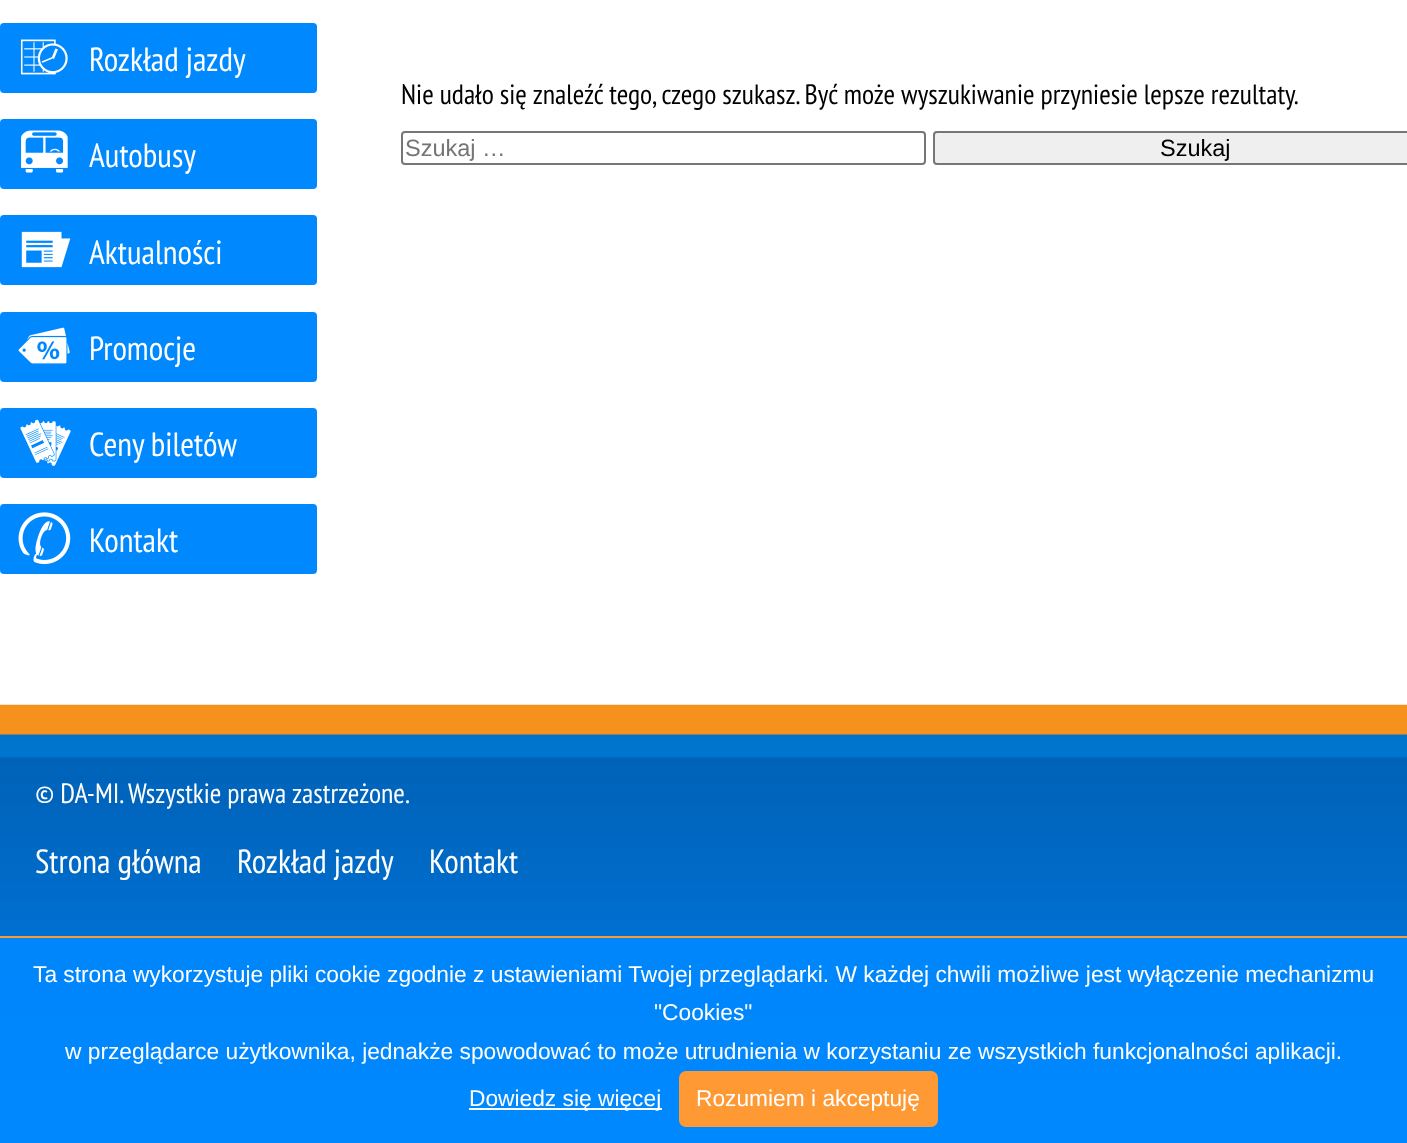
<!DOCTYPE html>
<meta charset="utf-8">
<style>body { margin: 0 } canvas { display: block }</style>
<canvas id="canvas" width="1407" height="1143"></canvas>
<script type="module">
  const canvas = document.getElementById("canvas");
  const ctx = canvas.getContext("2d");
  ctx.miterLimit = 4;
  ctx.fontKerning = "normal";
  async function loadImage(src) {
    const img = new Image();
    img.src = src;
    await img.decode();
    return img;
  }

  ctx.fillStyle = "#ffffff";
  ctx.fillRect(0, 0, 1407, 1143);
  ctx.fillStyle = "#0088ff";
  ctx.beginPath();
  ctx.roundRect(0, 23, 317, 70, 4);
  ctx.fill();
  ctx.drawImage(await loadImage("img1.png"), 20, 39, 48, 36);
  ctx.font = "33.5px PT Sans Narrow";
  ctx.fillStyle = "#ffffff";
  ctx.fillText("Rozkład jazdy", 89, 71);
  ctx.fillStyle = "#0088ff";
  ctx.beginPath();
  ctx.roundRect(0, 119, 317, 70, 4);
  ctx.fill();
  ctx.drawImage(await loadImage("img2.png"), 21, 130, 47, 43);
  ctx.fillStyle = "#ffffff";
  ctx.fillText("Autobusy", 89, 167);
  ctx.fillStyle = "#0088ff";
  ctx.beginPath();
  ctx.roundRect(0, 215, 317, 70, 4);
  ctx.fill();
  ctx.drawImage(await loadImage("img3.png"), 21, 231, 50, 37);
  ctx.fillStyle = "#ffffff";
  ctx.fillText("Aktualności", 89, 264);
  ctx.fillStyle = "#0088ff";
  ctx.beginPath();
  ctx.roundRect(0, 312, 317, 70, 4);
  ctx.fill();
  ctx.drawImage(await loadImage("img4.png"), 18, 327, 52, 37);
  ctx.fillStyle = "#ffffff";
  ctx.fillText("Promocje", 89, 360);
  ctx.fillStyle = "#0088ff";
  ctx.beginPath();
  ctx.roundRect(0, 408, 317, 70, 4);
  ctx.fill();
  ctx.drawImage(await loadImage("img5.png"), 20, 419, 51, 47);
  ctx.fillStyle = "#ffffff";
  ctx.fillText("Ceny biletów", 89, 456);
  ctx.fillStyle = "#0088ff";
  ctx.beginPath();
  ctx.roundRect(0, 504, 317, 70, 4);
  ctx.fill();
  ctx.drawImage(await loadImage("img6.png"), 18, 512, 53, 53);
  ctx.fillStyle = "#ffffff";
  ctx.fillText("Kontakt", 89, 552);
  ctx.font = "28px PT Sans Narrow";
  ctx.fillStyle = "#000000";
  ctx.fillText("Nie udało się znaleźć tego, czego szukasz. Być może wyszukiwanie przyniesie lepsze rezultaty.", 401, 104);
  ctx.beginPath();
  ctx.roundRect(402, 132, 523, 32, 3);
  ctx.strokeStyle = "#767676";
  ctx.lineWidth = 2;
  ctx.stroke();
  ctx.font = "23.5px Liberation Sans";
  ctx.fillStyle = "#757575";
  ctx.fillText("Szukaj …", 405, 156);
  ctx.fillStyle = "#efefef";
  ctx.beginPath();
  ctx.roundRect(933, 131, 474, 34, [4, 0, 0, 4]);
  ctx.fill();
  ctx.beginPath();
  ctx.roundRect(934, 132, 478, 32, 3);
  ctx.stroke();
  ctx.fillStyle = "#000000";
  ctx.fillText("Szukaj", 1160, 156);
  ctx.fillStyle = "#0080ef";
  ctx.fillRect(0, 1080, 1407, 63);
  ctx.drawImage(await loadImage("img7.png"), 0, 704, 1407, 376);
  ctx.font = "28px PT Sans Narrow";
  ctx.fillStyle = "#ffffff";
  ctx.fillText("© DA-MI. Wszystkie prawa zastrzeżone.", 35, 803);
  ctx.font = "33.5px PT Sans Narrow";
  ctx.fillText("Strona główna", 35, 873);
  ctx.fillText("Rozkład jazdy", 237, 873);
  ctx.fillText("Kontakt", 429, 873);
  ctx.fillStyle = "rgba(0, 136, 255, 0.9)";
  ctx.fillRect(0, 938, 1407, 205);
  ctx.fillStyle = "#ff9933";
  ctx.fillRect(0, 936, 1407, 2);
  ctx.font = "22.75px Liberation Sans";
  ctx.fillStyle = "#ffffff";
  ctx.fillText("Ta strona wykorzystuje pliki cookie zgodnie z ustawieniami Twojej przeglądarki. W każdej chwili możliwe jest wyłączenie mechanizmu", 33, 982);
  ctx.fillText("\"Cookies\"", 654, 1020);
  ctx.fillText("w przeglądarce użytkownika, jednakże spowodować to może utrudnienia w korzystaniu ze wszystkich funkcjonalności aplikacji.", 65, 1059);
  ctx.fillRect(469, 1108, 193, 2);
  ctx.fillText("Dowiedz się więcej", 469, 1106);
  ctx.fillStyle = "#ff9933";
  ctx.beginPath();
  ctx.roundRect(679, 1071, 259, 56, 7);
  ctx.fill();
  ctx.fillStyle = "#ffffff";
  ctx.fillText("Rozumiem i akceptuję", 696, 1106);
</script>
